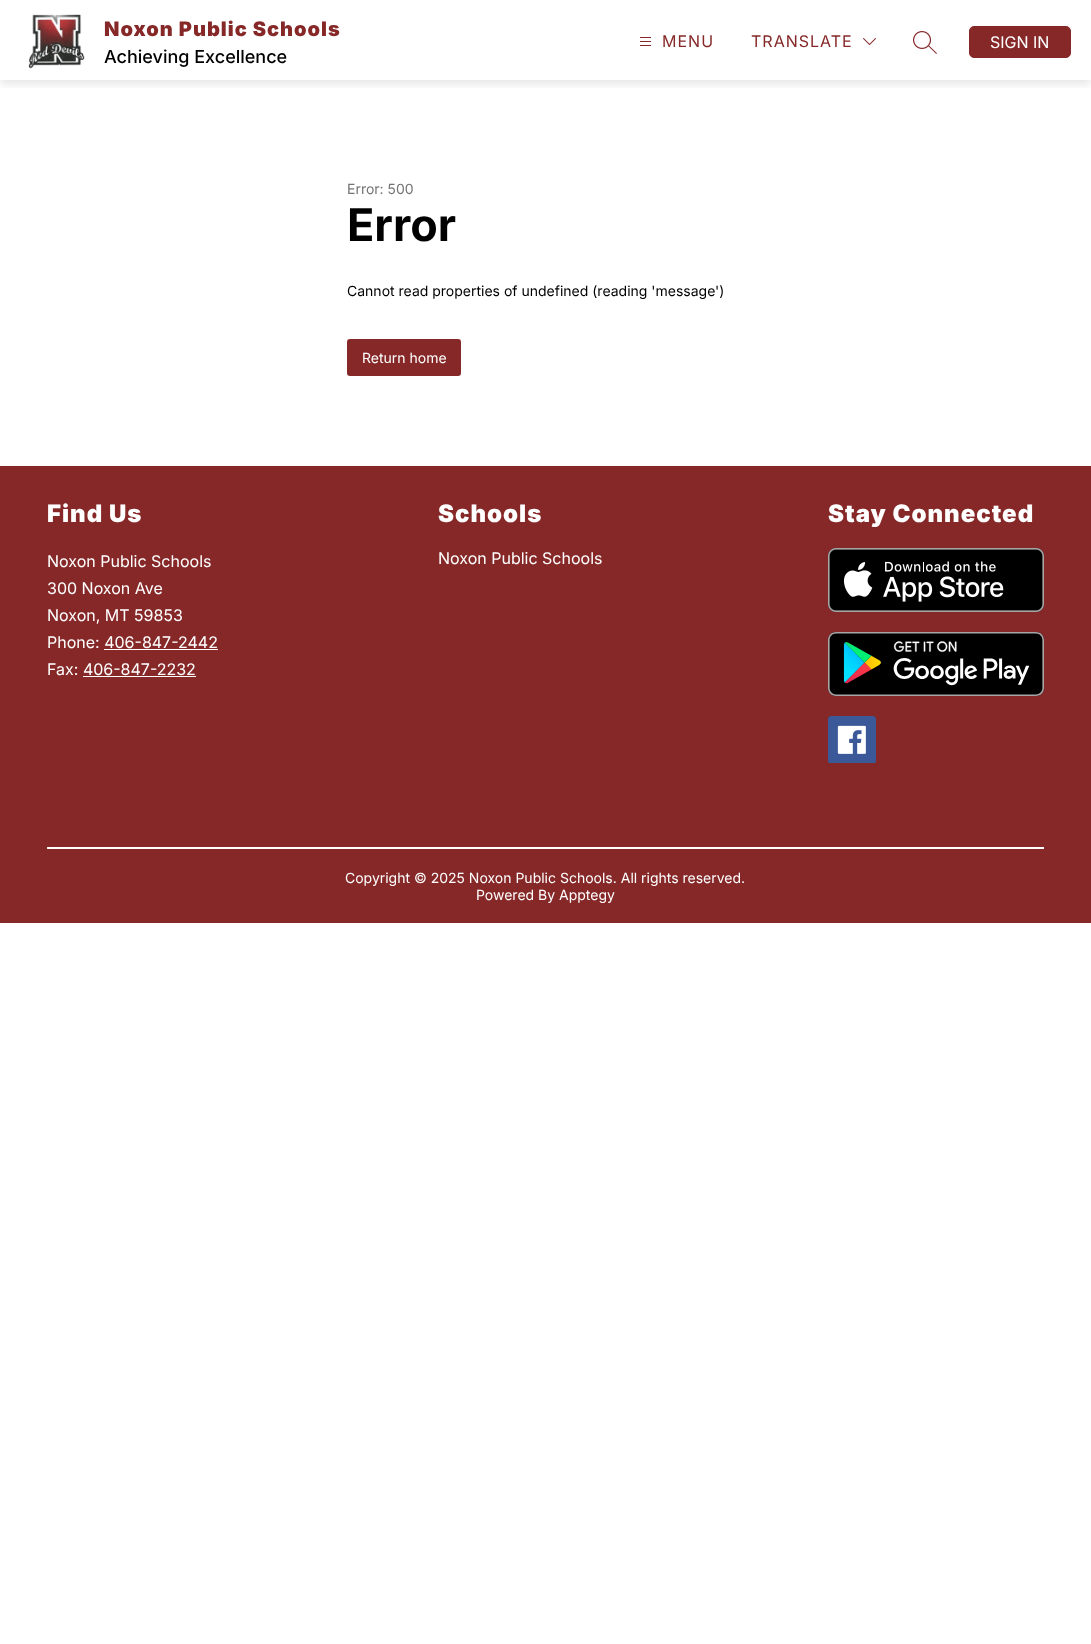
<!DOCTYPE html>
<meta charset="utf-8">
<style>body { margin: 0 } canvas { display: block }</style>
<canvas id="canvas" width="1091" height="1644"></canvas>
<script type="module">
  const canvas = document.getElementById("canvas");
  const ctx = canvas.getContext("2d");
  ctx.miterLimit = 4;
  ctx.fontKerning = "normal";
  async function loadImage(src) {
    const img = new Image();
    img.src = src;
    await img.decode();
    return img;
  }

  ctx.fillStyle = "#ffffff";
  ctx.fillRect(0, 0, 1091, 1644);
  ctx.save();
  ctx.beginPath();
  ctx.rect(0, 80, 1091, 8);
  ctx.clip();
  ctx.fillStyle = "rgba(0, 0, 0, 0.1)";
  ctx.filter = "blur(5px)";
  ctx.beginPath();
  ctx.rect(0, 4, 1091, 80);
  ctx.fill();
  ctx.filter = "none";
  ctx.restore();
  ctx.drawImage(await loadImage("img1.png"), 28, 14, 57, 55);
  ctx.letterSpacing = "1px";
  ctx.font = "900 20px Inter";
  ctx.fillStyle = "#862828";
  ctx.fillText("Noxon Public Schools", 104, 36);
  ctx.letterSpacing = "0px";
  ctx.font = "500 18px Inter";
  ctx.fillStyle = "#000000";
  ctx.fillText("Achieving Excellence", 104, 63);
  ctx.drawImage(await loadImage("img2.png"), 640, 37, 11, 9);
  ctx.letterSpacing = "1px";
  ctx.font = "16px Inter";
  ctx.fillStyle = "#862828";
  ctx.fillText("MENU", 662, 47);
  ctx.fillText("TRANSLATE", 751, 47);
  ctx.drawImage(await loadImage("img3.png"), 863, 38, 13, 7);
  ctx.drawImage(await loadImage("img4.png"), 913, 31, 24, 23);
  ctx.beginPath();
  ctx.roundRect(969.5, 26.5, 101, 31, 4.5);
  ctx.fill();
  ctx.strokeStyle = "#862828";
  ctx.stroke();
  ctx.letterSpacing = "0px";
  ctx.fillStyle = "#ffffff";
  ctx.fillText("SIGN IN", 990, 48);
  ctx.font = "14px Inter";
  ctx.fillStyle = "#747474";
  ctx.fillText("Error: 500", 347, 194);
  ctx.font = "bold 45px Inter";
  ctx.fillStyle = "#000000";
  ctx.fillText("Error", 347, 241);
  ctx.font = "14px Inter";
  ctx.fillText("Cannot read properties of undefined (reading 'message')", 347, 296);
  ctx.fillStyle = "#862828";
  ctx.beginPath();
  ctx.roundRect(347, 339, 114, 37, 3);
  ctx.fill();
  ctx.fillStyle = "#ffffff";
  ctx.fillText("Return home", 362, 363);
  ctx.fillStyle = "#862828";
  ctx.fillRect(0, 466, 1091, 457);
  ctx.letterSpacing = "1px";
  ctx.font = "900 24px Inter";
  ctx.fillStyle = "#ffffff";
  ctx.fillText("Find Us", 47, 522);
  ctx.letterSpacing = "0px";
  ctx.font = "16px Inter";
  ctx.fillText("Noxon Public Schools", 47, 567);
  ctx.fillText("300 Noxon Ave", 47, 594);
  ctx.fillText("Noxon, MT 59853", 47, 621);
  ctx.fillText("Phone: 406-847-2442", 47, 648);
  ctx.fillRect(104, 649, 114, 1);
  ctx.fillText("Fax: 406-847-2232", 47, 675);
  ctx.fillRect(83, 676, 113, 1);
  ctx.letterSpacing = "1px";
  ctx.font = "900 24px Inter";
  ctx.fillText("Schools", 438, 522);
  ctx.letterSpacing = "0px";
  ctx.font = "16px Inter";
  ctx.fillText("Noxon Public Schools", 438, 564);
  ctx.letterSpacing = "1px";
  ctx.font = "900 24px Inter";
  ctx.fillText("Stay Connected", 828, 522);
  ctx.drawImage(await loadImage("img5.png"), 828, 548, 216, 64);
  ctx.drawImage(await loadImage("img6.png"), 828, 632, 216, 64);
  ctx.drawImage(await loadImage("img7.png"), 828, 716, 48, 47);
  ctx.fillRect(47, 847, 997, 2);
  ctx.letterSpacing = "0px";
  ctx.font = "14px Inter";
  ctx.fillText("Copyright © 2025 Noxon Public Schools. All rights reserved.", 345, 883);
  ctx.fillText("Powered By Apptegy", 476, 900);
</script>
